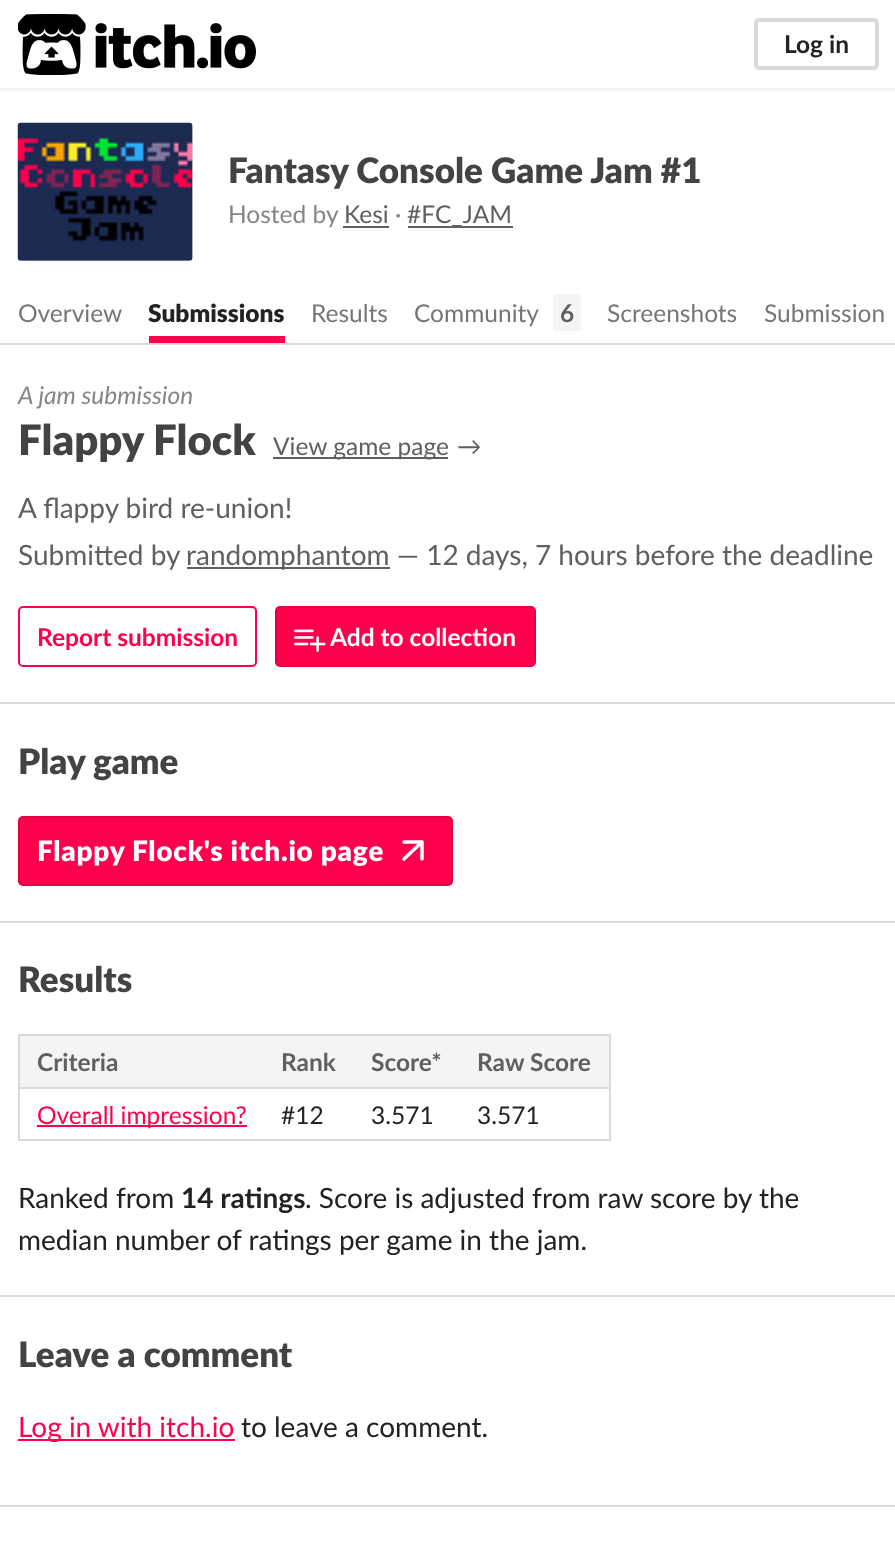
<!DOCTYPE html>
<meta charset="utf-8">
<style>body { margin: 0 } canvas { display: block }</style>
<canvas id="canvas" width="895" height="1558"></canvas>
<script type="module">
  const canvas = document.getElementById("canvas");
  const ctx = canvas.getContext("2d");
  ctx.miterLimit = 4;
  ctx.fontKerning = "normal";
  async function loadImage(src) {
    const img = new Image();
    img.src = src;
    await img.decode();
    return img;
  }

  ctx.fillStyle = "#ffffff";
  ctx.fillRect(0, 0, 895, 1558);
  ctx.fillStyle = "rgba(0, 0, 0, 0.1)";
  ctx.filter = "blur(2px)";
  ctx.beginPath();
  ctx.rect(0, 2, 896, 87);
  ctx.fill();
  ctx.filter = "none";
  ctx.fillStyle = "#ffffff";
  ctx.fillRect(0, 0, 895, 88);
  ctx.drawImage(await loadImage("img1.png"), 18, 14, 238, 61);
  ctx.beginPath();
  ctx.roundRect(756, 20, 121, 48, 3);
  ctx.strokeStyle = "#dadada";
  ctx.lineWidth = 4;
  ctx.stroke();
  ctx.font = "bold 24.5px Lato";
  ctx.fillStyle = "#222222";
  ctx.fillText("Log in", 784, 53);
  ctx.fillStyle = "#dadada";
  ctx.fillRect(0, 343, 895, 2);
  ctx.fillStyle = "#f4f4f4";
  ctx.beginPath();
  ctx.roundRect(18, 123, 175, 138, 4);
  ctx.fill();
  ctx.beginPath();
  ctx.roundRect(19, 124, 173, 136, 3);
  ctx.strokeStyle = "rgba(0, 0, 0, 0.1)";
  ctx.lineWidth = 2;
  ctx.stroke();
  ctx.drawImage(await loadImage("img2.png"), 17, 122, 176, 139);
  ctx.font = "900 35px Lato";
  ctx.fillStyle = "#434343";
  ctx.fillText("Fantasy Console Game Jam #1", 228, 183);
  ctx.font = "24.5px Lato";
  ctx.fillStyle = "#858585";
  ctx.fillText("Hosted by", 228, 223);
  ctx.fillStyle = "#606060";
  ctx.fillText("Kesi", 344, 223);
  ctx.fillRect(343, 226, 46, 2);
  ctx.fillStyle = "#858585";
  ctx.fillText("·", 395, 223);
  ctx.fillStyle = "#606060";
  ctx.fillRect(408, 226, 105, 2);
  ctx.fillText("#FC_JAM", 407, 223);
  ctx.fillStyle = "#767676";
  ctx.fillText("Overview", 18, 322);
  ctx.fillStyle = "#ff004d";
  ctx.fillRect(149, 336, 136, 7);
  ctx.font = "900 24.5px Lato";
  ctx.fillStyle = "#222222";
  ctx.fillText("Submissions", 148, 322);
  ctx.font = "24.5px Lato";
  ctx.fillStyle = "#767676";
  ctx.fillText("Results", 311, 322);
  ctx.fillText("Community", 414, 322);
  ctx.fillStyle = "#f4f4f4";
  ctx.beginPath();
  ctx.roundRect(553, 294, 28, 37, 4);
  ctx.fill();
  ctx.font = "bold 24.5px Lato";
  ctx.fillStyle = "#606060";
  ctx.fillText("6", 560, 322);
  ctx.font = "24.5px Lato";
  ctx.fillStyle = "#767676";
  ctx.fillText("Screenshots", 607, 322);
  ctx.fillText("Submission", 764, 322);
  ctx.fillStyle = "#dadada";
  ctx.fillRect(0, 702, 895, 2);
  ctx.font = "italic 24.5px Lato";
  ctx.fillStyle = "#858585";
  ctx.fillText("A jam submission", 18, 404);
  ctx.font = "900 42px Lato";
  ctx.fillStyle = "#434343";
  ctx.fillText("Flappy Flock", 18, 455);
  ctx.fillStyle = "#606060";
  ctx.fillRect(273, 457, 175, 2);
  ctx.font = "24.5px Lato";
  ctx.fillText("View game page", 273, 455);
  ctx.fillText("→", 457, 455);
  ctx.font = "28px Lato";
  ctx.fillText("A flappy bird re-union!", 18, 518);
  ctx.fillText("Submitted by", 18, 565);
  ctx.fillRect(187, 567, 203, 2);
  ctx.fillText("randomphantom — 12 days, 7 hours before the deadline", 186, 565);
  ctx.beginPath();
  ctx.roundRect(19, 607, 237, 59, 4);
  ctx.strokeStyle = "#ff004d";
  ctx.stroke();
  ctx.font = "bold 24.5px Lato";
  ctx.fillStyle = "#ff004c";
  ctx.fillText("Report submission", 37, 646);
  ctx.fillStyle = "#ff004d";
  ctx.beginPath();
  ctx.roundRect(275, 606, 261, 61, 5);
  ctx.fill();
  ctx.beginPath();
  ctx.roundRect(276, 607, 259, 59, 4);
  ctx.strokeStyle = "rgba(0, 0, 0, 0.1)";
  ctx.stroke();
  ctx.drawImage(await loadImage("img3.png"), 294, 629, 32, 23);
  ctx.fillStyle = "#ffffff";
  ctx.fillText("Add to collection", 330, 646);
  ctx.fillStyle = "#dadada";
  ctx.fillRect(0, 921, 895, 2);
  ctx.font = "900 35px Lato";
  ctx.fillStyle = "#434343";
  ctx.fillText("Play game", 18, 774);
  ctx.fillStyle = "#ff004d";
  ctx.beginPath();
  ctx.roundRect(18, 816, 435, 70, 5);
  ctx.fill();
  ctx.beginPath();
  ctx.roundRect(19, 817, 433, 68, 4);
  ctx.stroke();
  ctx.letterSpacing = "0.7px";
  ctx.font = "900 28px Lato";
  ctx.fillStyle = "#ffffff";
  ctx.fillText("Flappy Flock's itch.io page", 37, 861);
  ctx.beginPath();
  ctx.moveTo(404, 859);
  ctx.lineTo(422, 842);
  ctx.moveTo(404, 842);
  ctx.lineTo(422, 842);
  ctx.lineTo(422, 859);
  ctx.strokeStyle = "#ffffff";
  ctx.lineWidth = 3.5;
  ctx.lineCap = "round";
  ctx.lineJoin = "round";
  ctx.stroke();
  ctx.fillStyle = "#dadada";
  ctx.fillRect(0, 1295, 895, 2);
  ctx.letterSpacing = "0px";
  ctx.font = "900 35px Lato";
  ctx.fillStyle = "#434343";
  ctx.fillText("Results", 18, 992);
  ctx.fillStyle = "#dadada";
  ctx.fillRect(18, 1034, 593, 2);
  ctx.fillRect(609, 1034, 2, 107);
  ctx.fillRect(18, 1139, 593, 2);
  ctx.fillRect(18, 1034, 2, 107);
  ctx.fillStyle = "#f4f4f4";
  ctx.fillRect(20, 1036, 589, 51);
  ctx.font = "bold 24.5px Lato";
  ctx.fillStyle = "#606060";
  ctx.fillText("Criteria", 37, 1071);
  ctx.fillText("Rank", 281, 1071);
  ctx.fillText("Score*", 371, 1071);
  ctx.fillText("Raw Score", 477, 1071);
  ctx.fillStyle = "#dadada";
  ctx.fillRect(18, 1087, 593, 2);
  ctx.fillStyle = "#ff004c";
  ctx.fillRect(37, 1125, 210, 2);
  ctx.font = "24.5px Lato";
  ctx.fillText("Overall impression?", 37, 1124);
  ctx.fillStyle = "#222222";
  ctx.fillText("#12", 281, 1124);
  ctx.fillText("3.571", 371, 1124);
  ctx.fillText("3.571", 477, 1124);
  ctx.font = "28px Lato";
  ctx.fillText("Ranked from", 18, 1208);
  ctx.font = "bold 28px Lato";
  ctx.fillText("14 ratings", 181, 1208);
  ctx.font = "28px Lato";
  ctx.fillText(". Score is adjusted from raw score by the", 305, 1208);
  ctx.fillText("median number of ratings per game in the jam.", 18, 1250);
  ctx.fillStyle = "#dadada";
  ctx.fillRect(0, 1505, 895, 2);
  ctx.font = "900 35px Lato";
  ctx.fillStyle = "#434343";
  ctx.fillText("Leave a comment", 18, 1367);
  ctx.fillStyle = "#ff004c";
  ctx.fillRect(18, 1439, 217, 2);
  ctx.font = "28px Lato";
  ctx.fillText("Log in with itch.io", 18, 1437);
  ctx.fillStyle = "#222222";
  ctx.fillText("to leave a comment.", 241, 1437);
</script>
